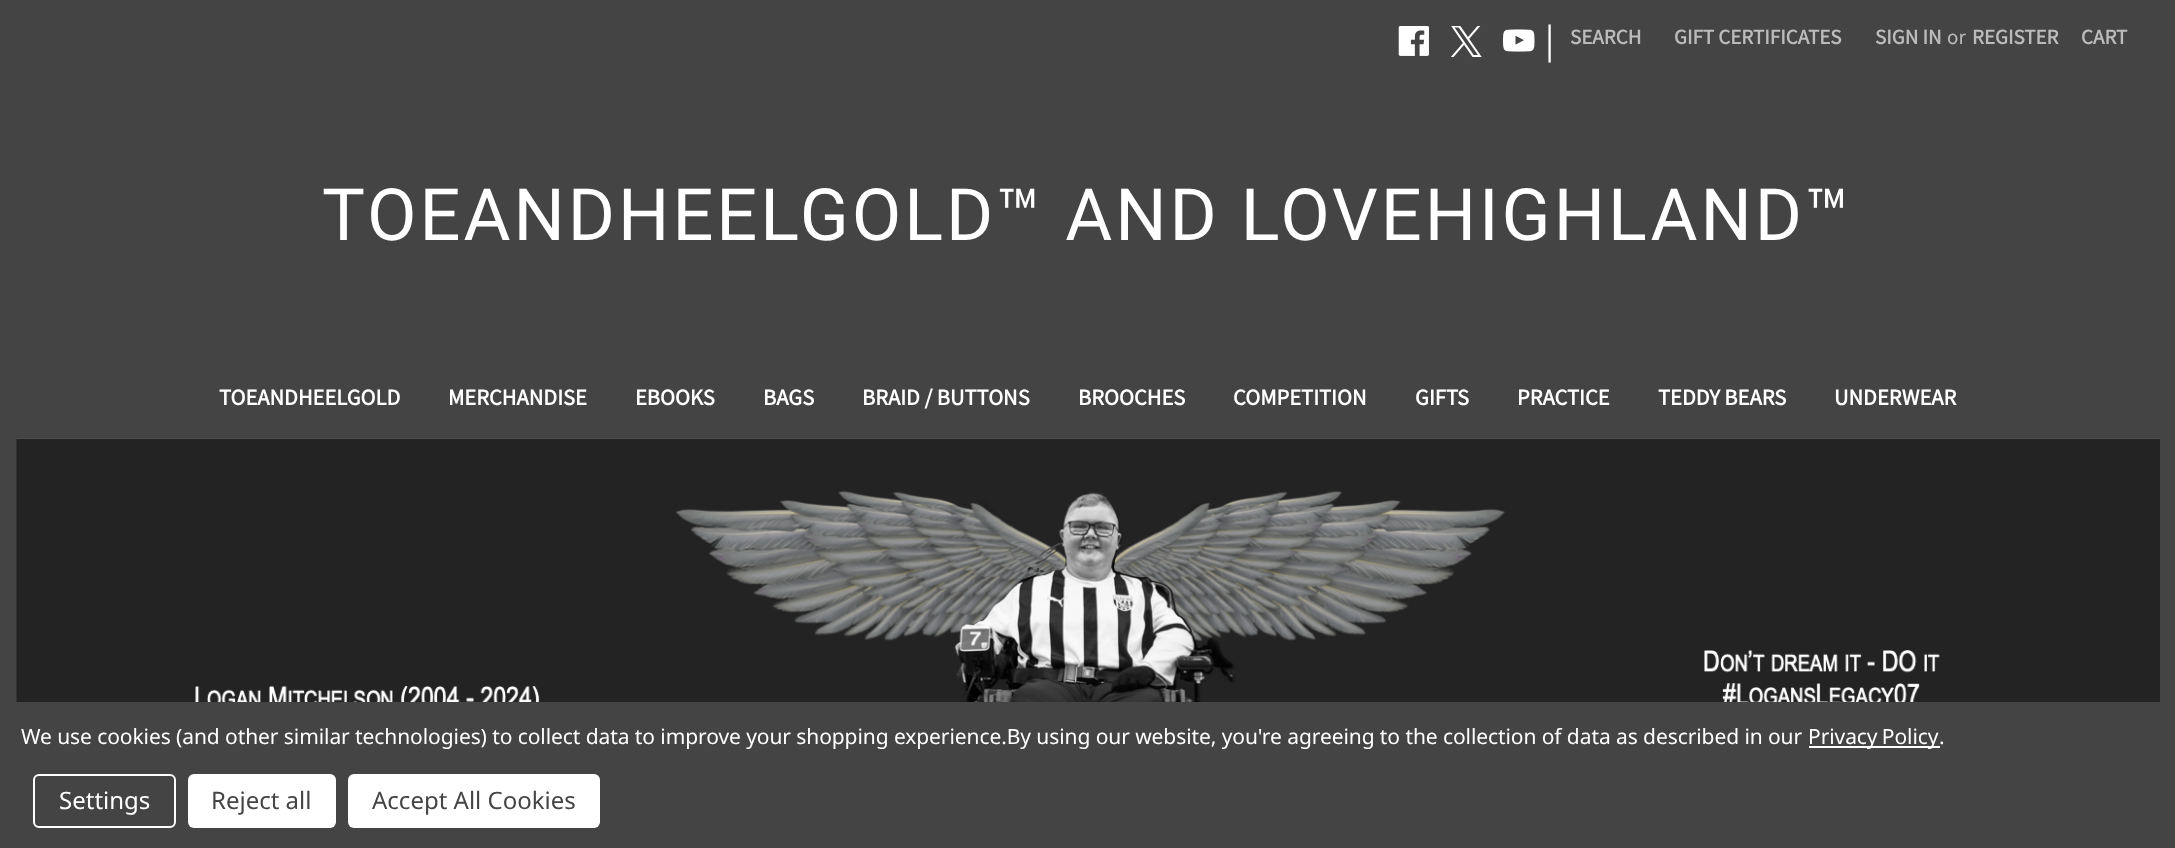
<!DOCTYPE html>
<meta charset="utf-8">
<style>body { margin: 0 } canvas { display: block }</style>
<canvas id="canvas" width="2175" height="848"></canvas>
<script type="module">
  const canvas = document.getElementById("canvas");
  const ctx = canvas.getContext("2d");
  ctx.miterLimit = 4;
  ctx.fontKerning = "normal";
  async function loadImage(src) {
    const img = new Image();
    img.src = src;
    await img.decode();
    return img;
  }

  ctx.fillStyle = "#444444";
  ctx.fillRect(0, 0, 2175, 848);
  ctx.drawImage(await loadImage("img1.png"), 1398, 26, 31, 30);
  ctx.drawImage(await loadImage("img2.png"), 1451, 26, 31, 31);
  ctx.drawImage(await loadImage("img3.png"), 1503, 29, 32, 23);
  ctx.font = "38px Source Sans Pro";
  ctx.fillStyle = "#ffffff";
  ctx.fillText("|", 1545, 53);
  ctx.font = "bold 21px Source Sans Pro";
  ctx.fillStyle = "#bbbbbb";
  ctx.fillText("SEARCH", 1570, 44);
  ctx.fillText("GIFT CERTIFICATES", 1674, 44);
  ctx.fillText("SIGN IN", 1875, 44);
  ctx.font = "21px Source Sans Pro";
  ctx.fillText("or", 1947, 44);
  ctx.font = "bold 21px Source Sans Pro";
  ctx.fillText("REGISTER", 1972, 44);
  ctx.fillText("CART", 2081, 44);
  ctx.letterSpacing = "3px";
  ctx.font = "72px Roboto";
  ctx.fillStyle = "#ffffff";
  ctx.fillText("TOEANDHEELGOLD™ AND LOVEHIGHLAND™", 322, 240);
  ctx.letterSpacing = "0px";
  ctx.font = "bold 22.5px Source Sans Pro";
  ctx.fillText("TOEANDHEELGOLD", 219, 405);
  ctx.fillText("MERCHANDISE", 448, 405);
  ctx.fillText("EBOOKS", 635, 405);
  ctx.fillText("BAGS", 763, 405);
  ctx.fillText("BRAID / BUTTONS", 862, 405);
  ctx.fillText("BROOCHES", 1078, 405);
  ctx.fillText("COMPETITION", 1233, 405);
  ctx.fillText("GIFTS", 1415, 405);
  ctx.fillText("PRACTICE", 1517, 405);
  ctx.fillText("TEDDY BEARS", 1658, 405);
  ctx.fillText("UNDERWEAR", 1834, 405);
  ctx.drawImage(await loadImage("img4.png"), 16, 438, 2144, 264);
  ctx.letterSpacing = "-0.08px";
  ctx.font = "21px Noto Sans";
  ctx.fillText("We use cookies (and other similar technologies) to collect data to improve your shopping experience.By using our website, you're agreeing to the collection of data as described in our", 21, 744);
  ctx.fillRect(1809, 746, 131, 2);
  ctx.wordSpacing = "-1px";
  ctx.fillText("Privacy Policy", 1808, 744);
  ctx.wordSpacing = "0px";
  ctx.fillText(".", 1939, 744);
  ctx.beginPath();
  ctx.roundRect(34, 775, 141, 52, 5);
  ctx.strokeStyle = "#ffffff";
  ctx.lineWidth = 2;
  ctx.stroke();
  ctx.letterSpacing = "0px";
  ctx.font = "24px Noto Sans";
  ctx.fillText("Settings", 59, 809);
  ctx.beginPath();
  ctx.roundRect(188, 774, 148, 54, 6);
  ctx.fill();
  ctx.fillStyle = "#454545";
  ctx.fillText("Reject all", 211, 809);
  ctx.fillStyle = "#ffffff";
  ctx.beginPath();
  ctx.roundRect(348, 774, 252, 54, 6);
  ctx.fill();
  ctx.fillStyle = "#454545";
  ctx.fillText("Accept All Cookies", 372, 809);
</script>
